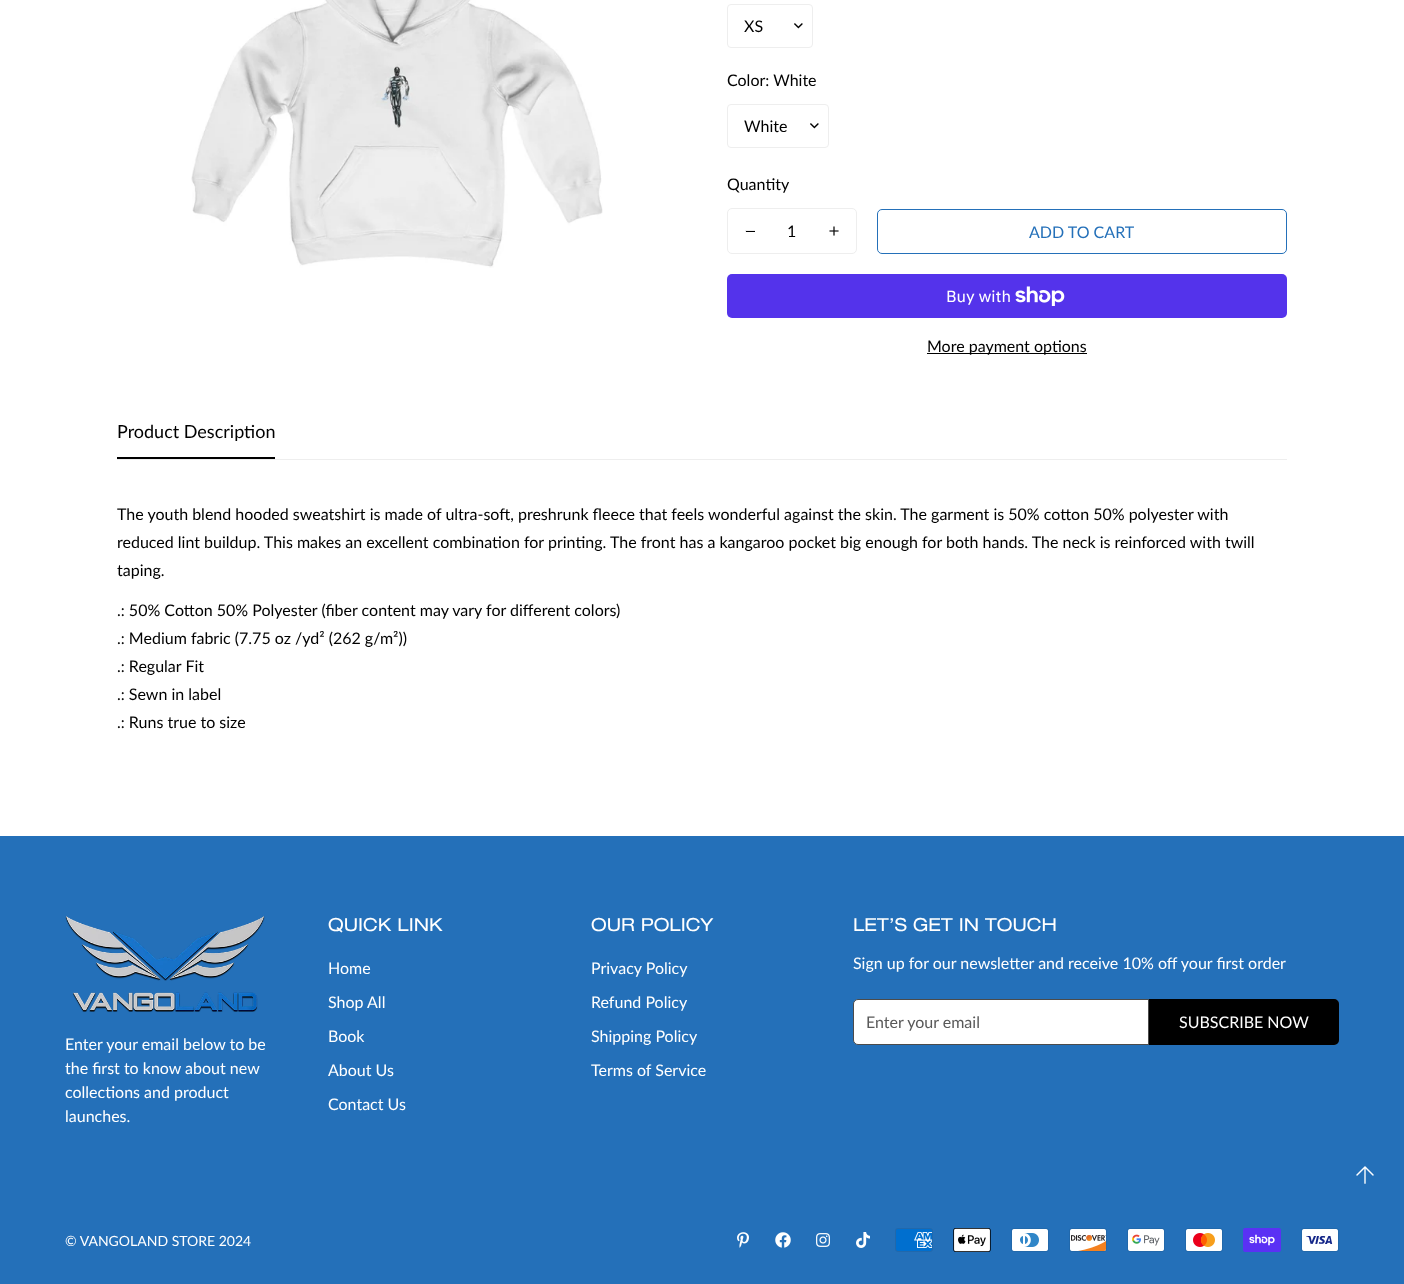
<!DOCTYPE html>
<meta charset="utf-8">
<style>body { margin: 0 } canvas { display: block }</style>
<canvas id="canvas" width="1404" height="1284"></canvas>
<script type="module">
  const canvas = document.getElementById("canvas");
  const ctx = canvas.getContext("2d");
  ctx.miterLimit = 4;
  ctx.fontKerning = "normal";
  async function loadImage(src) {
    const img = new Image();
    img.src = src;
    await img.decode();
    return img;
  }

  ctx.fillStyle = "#ffffff";
  ctx.fillRect(0, 0, 1404, 1284);
  ctx.drawImage(await loadImage("img1.png"), 191, 0, 412, 268);
  ctx.drawImage(await loadImage("img2.png"), 794, 23, 9, 6);
  ctx.beginPath();
  ctx.roundRect(727.5, 4.5, 85, 43, 3.5);
  ctx.strokeStyle = "#eeeeee";
  ctx.stroke();
  ctx.font = "16px Lato";
  ctx.fillStyle = "#000000";
  ctx.fillText("XS", 744, 32);
  ctx.fillText("Color: White", 727, 86);
  ctx.drawImage(await loadImage("img2.png"), 810, 123, 9, 6);
  ctx.beginPath();
  ctx.roundRect(727.5, 104.5, 101, 43, 3.5);
  ctx.stroke();
  ctx.fillText("White", 744, 132);
  ctx.fillText("Quantity", 727, 190);
  ctx.beginPath();
  ctx.roundRect(727.5, 208.5, 129, 45, 4.5);
  ctx.stroke();
  ctx.drawImage(await loadImage("img3.png"), 745, 230, 10, 2);
  ctx.fillText("1", 787, 237);
  ctx.drawImage(await loadImage("img4.png"), 829, 226, 10, 10);
  ctx.beginPath();
  ctx.roundRect(877.5, 209.5, 409, 44, 4.5);
  ctx.strokeStyle = "#2470b9";
  ctx.stroke();
  ctx.fillStyle = "#2470b9";
  ctx.fillText("ADD TO CART", 1029, 238);
  ctx.fillStyle = "#5433eb";
  ctx.beginPath();
  ctx.roundRect(727, 274, 560, 44, 5);
  ctx.fill();
  ctx.font = "16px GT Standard";
  ctx.fillStyle = "#ffffff";
  ctx.fillText("Buy with", 946, 302);
  ctx.drawImage(await loadImage("img5.png"), 1015, 286, 50, 20);
  ctx.fillStyle = "#000000";
  ctx.fillRect(927, 353, 160, 1);
  ctx.font = "16px Lato";
  ctx.fillText("More payment options", 927, 352);
  ctx.fillStyle = "#eeeeee";
  ctx.fillRect(117, 459, 1170, 1);
  ctx.font = "18px Lato";
  ctx.fillStyle = "#000000";
  ctx.fillText("Product Description", 117, 438);
  ctx.fillRect(117, 457, 158, 2);
  ctx.font = "16px Lato";
  ctx.fillText("The youth blend hooded sweatshirt is made of ultra-soft, preshrunk fleece that feels wonderful against the skin. The garment is 50% cotton 50% polyester with", 117, 520);
  ctx.fillText("reduced lint buildup. This makes an excellent combination for printing. The front has a kangaroo pocket big enough for both hands. The neck is reinforced with twill", 117, 548);
  ctx.fillText("taping.", 117, 576);
  ctx.fillText(".: 50% Cotton 50% Polyester (fiber content may vary for different colors)", 117, 616);
  ctx.fillText(".: Medium fabric (7.75 oz /yd² (262 g/m²))", 117, 644);
  ctx.fillText(".: Regular Fit", 117, 672);
  ctx.fillText(".: Sewn in label", 117, 700);
  ctx.fillText(".: Runs true to size", 117, 728);
  ctx.fillStyle = "#2470b9";
  ctx.fillRect(0, 836, 1404, 448);
  ctx.font = "18px Helvetica Neue";
  ctx.fillStyle = "#ffffff";
  ctx.fillText("QUICK LINK", 328, 931);
  ctx.font = "16px Lato";
  ctx.fillText("Home", 328, 974);
  ctx.fillText("Shop All", 328, 1008);
  ctx.fillText("Book", 328, 1042);
  ctx.fillText("About Us", 328, 1076);
  ctx.fillText("Contact Us", 328, 1110);
  ctx.font = "18px Helvetica Neue";
  ctx.fillText("OUR POLICY", 591, 931);
  ctx.font = "16px Lato";
  ctx.fillText("Privacy Policy", 591, 974);
  ctx.fillText("Refund Policy", 591, 1008);
  ctx.fillText("Shipping Policy", 591, 1042);
  ctx.fillText("Terms of Service", 591, 1076);
  ctx.font = "18px Helvetica Neue";
  ctx.fillText("LET’S GET IN TOUCH", 853, 931);
  ctx.font = "16px Lato";
  ctx.fillText("Sign up for our newsletter and receive 10% off your first order", 853, 969);
  ctx.beginPath();
  ctx.roundRect(853.5, 999.5, 485, 45, 4.5);
  ctx.fill();
  ctx.strokeStyle = "#4b4b4b";
  ctx.stroke();
  ctx.fillStyle = "#595959";
  ctx.fillText("Enter your email", 866, 1028);
  ctx.fillStyle = "#000000";
  ctx.beginPath();
  ctx.roundRect(1149, 999, 190, 46, [0, 5, 5, 0]);
  ctx.fill();
  ctx.fillStyle = "#4b4b4b";
  ctx.fillRect(1148, 999, 1, 46);
  ctx.fillStyle = "#ffffff";
  ctx.fillText("SUBSCRIBE NOW", 1179, 1028);
  ctx.drawImage(await loadImage("img6.png"), 65, 916, 200, 96);
  ctx.fillText("Enter your email below to be", 65, 1050);
  ctx.fillText("the first to know about new", 65, 1074);
  ctx.fillText("collections and product", 65, 1098);
  ctx.fillText("launches.", 65, 1122);
  ctx.font = "14px Lato";
  ctx.fillText("© VANGOLAND STORE 2024", 65, 1246);
  ctx.drawImage(await loadImage("img7.png"), 737, 1232, 12, 16);
  ctx.drawImage(await loadImage("img8.png"), 775, 1232, 16, 16);
  ctx.drawImage(await loadImage("img9.png"), 816, 1233, 14, 14);
  ctx.drawImage(await loadImage("img10.png"), 856, 1232, 14, 16);
  ctx.drawImage(await loadImage("img11.png"), 895, 1228, 38, 24);
  ctx.drawImage(await loadImage("img12.png"), 953, 1228, 38, 24);
  ctx.drawImage(await loadImage("img13.png"), 1011, 1228, 38, 24);
  ctx.drawImage(await loadImage("img14.png"), 1069, 1228, 38, 24);
  ctx.drawImage(await loadImage("img15.png"), 1127, 1228, 38, 24);
  ctx.drawImage(await loadImage("img16.png"), 1185, 1228, 38, 24);
  ctx.drawImage(await loadImage("img17.png"), 1243, 1228, 38, 24);
  ctx.drawImage(await loadImage("img18.png"), 1301, 1228, 38, 24);
  ctx.drawImage(await loadImage("img19.png"), 1356, 1166, 18, 18);
</script>
